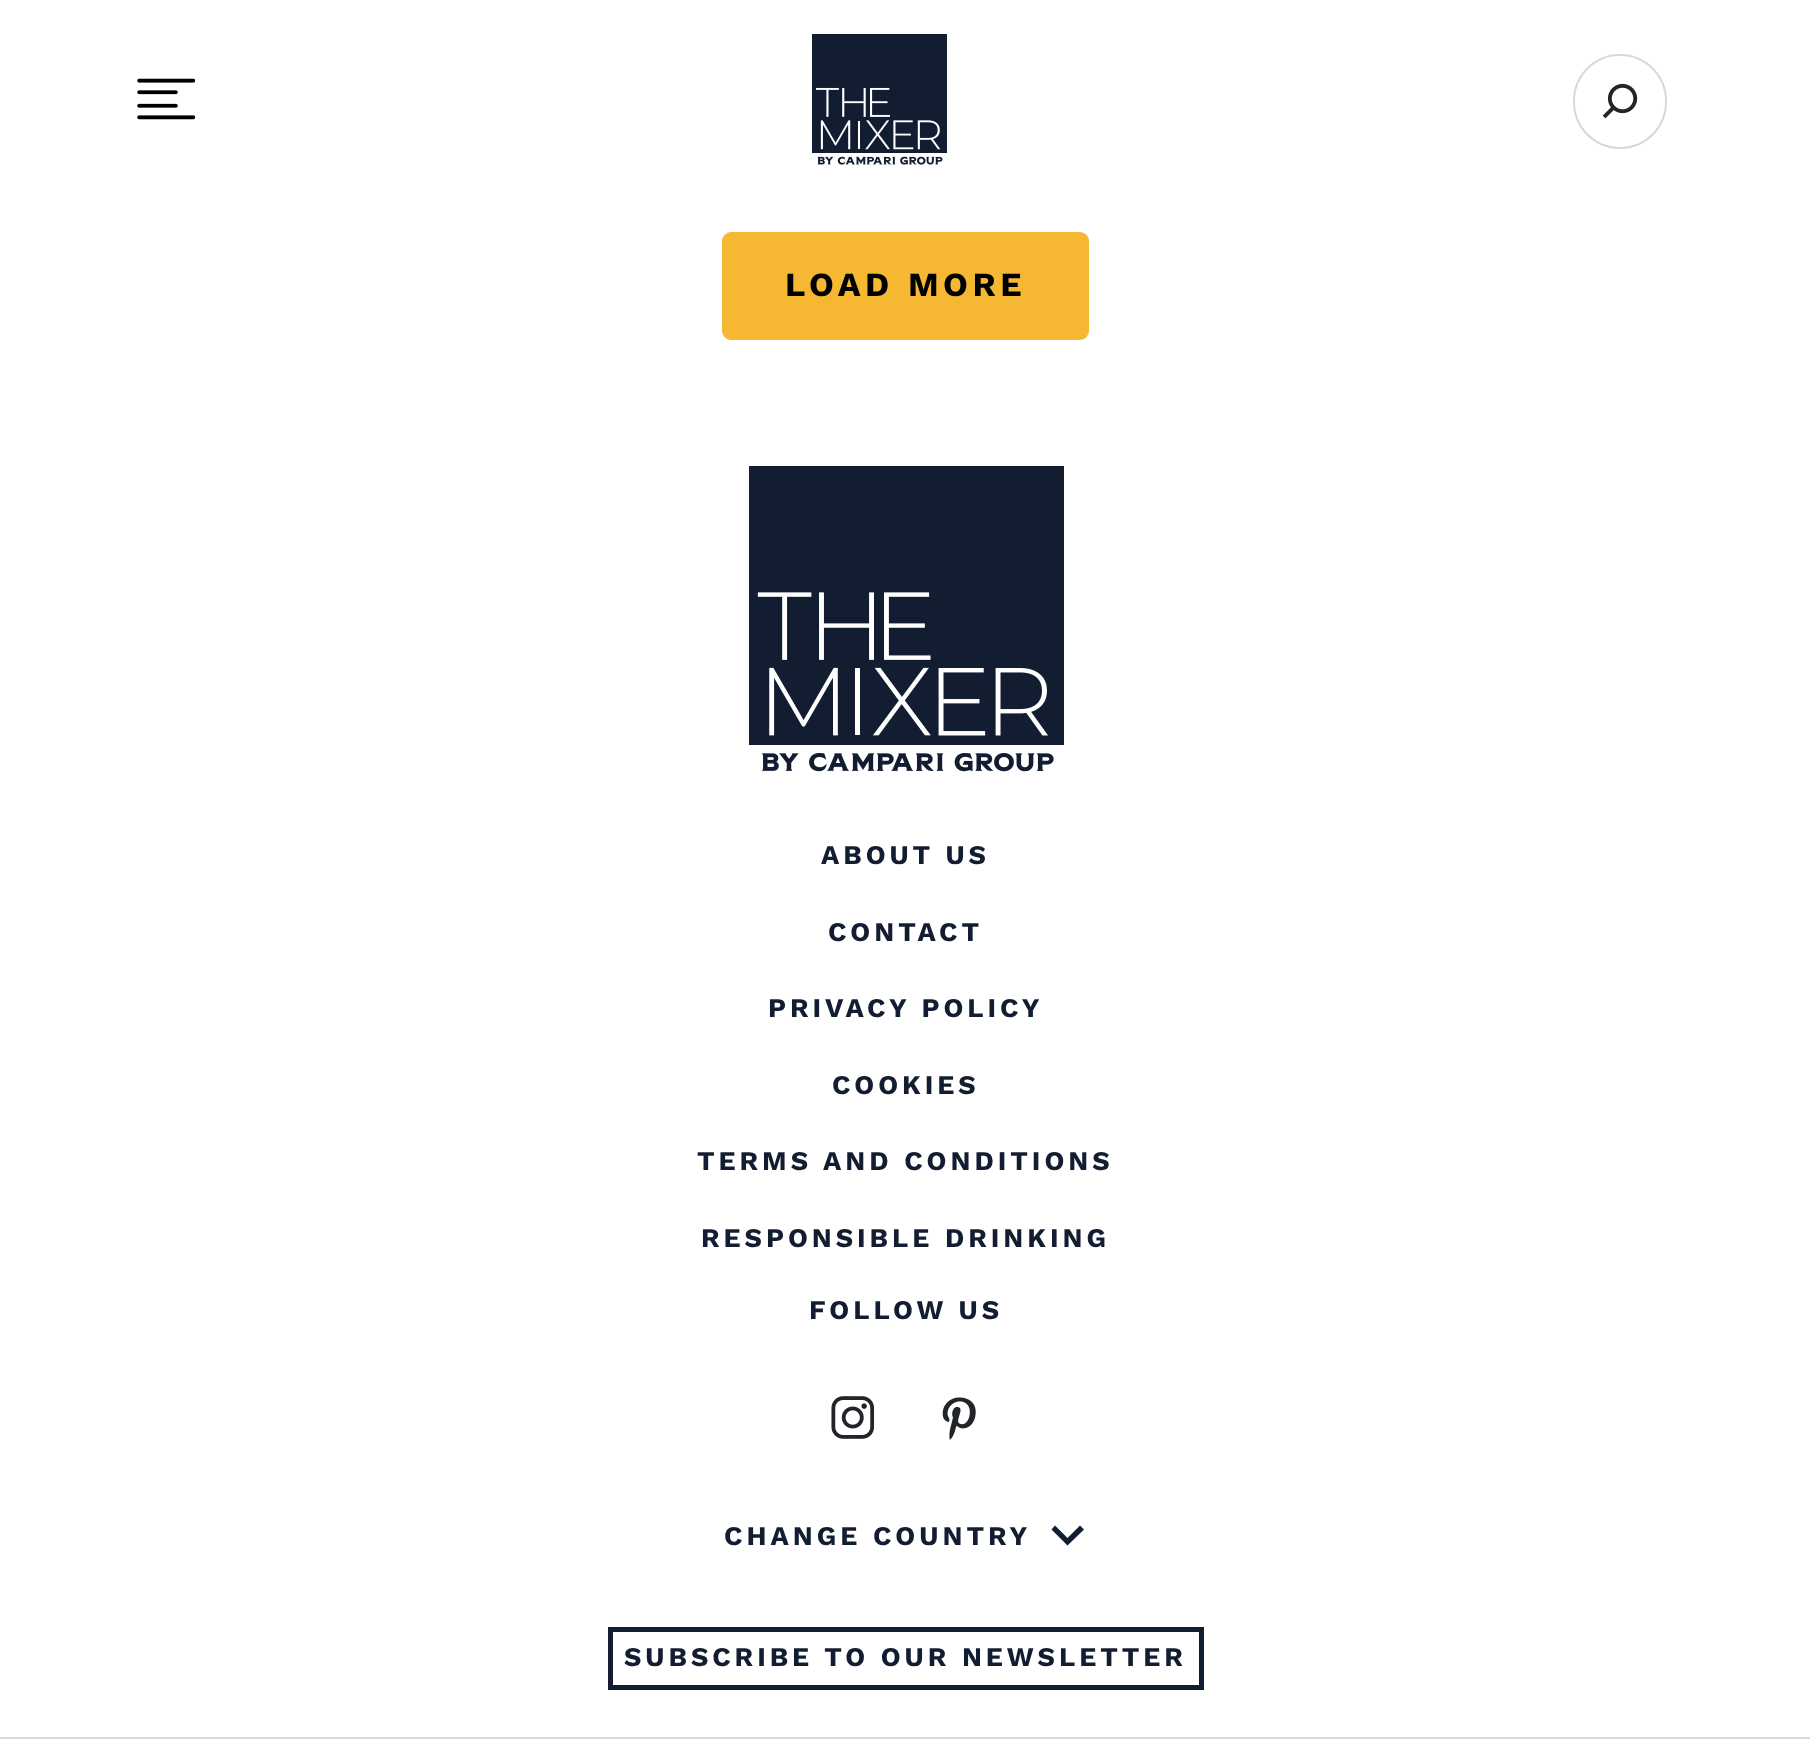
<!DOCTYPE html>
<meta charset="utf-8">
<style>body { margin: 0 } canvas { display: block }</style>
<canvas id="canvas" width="1810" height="1739"></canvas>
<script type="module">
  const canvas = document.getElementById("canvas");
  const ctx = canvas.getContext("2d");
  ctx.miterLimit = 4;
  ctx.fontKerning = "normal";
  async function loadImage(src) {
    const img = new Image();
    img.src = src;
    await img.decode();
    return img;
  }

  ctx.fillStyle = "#ffffff";
  ctx.fillRect(0, 0, 1810, 1739);
  ctx.drawImage(await loadImage("img1.png"), 137, 78, 59, 42);
  ctx.drawImage(await loadImage("img2.png"), 812, 34, 135, 131);
  ctx.beginPath();
  ctx.roundRect(1574, 55, 92, 93, 46);
  ctx.strokeStyle = "#d8d8d8";
  ctx.lineWidth = 2;
  ctx.stroke();
  ctx.drawImage(await loadImage("img3.png"), 1602, 83, 36, 36);
  ctx.fillStyle = "#f6b833";
  ctx.beginPath();
  ctx.roundRect(725.5, 235.5, 360, 101, 5.5);
  ctx.fill();
  ctx.strokeStyle = "#f6b833";
  ctx.lineWidth = 7;
  ctx.stroke();
  ctx.letterSpacing = "4.5px";
  ctx.font = "bold 33.75px Work Sans";
  ctx.fillStyle = "#000000";
  ctx.fillText("LOAD MORE", 785, 296);
  ctx.drawImage(await loadImage("img4.png"), 749, 466, 315, 306);
  ctx.letterSpacing = "3.95px";
  ctx.font = "bold 27px Work Sans";
  ctx.fillStyle = "#131d32";
  ctx.fillText("ABOUT US", 821, 864);
  ctx.fillText("CONTACT", 828, 941);
  ctx.fillText("PRIVACY POLICY", 768, 1017);
  ctx.fillText("COOKIES", 832, 1094);
  ctx.fillText("TERMS AND CONDITIONS", 697, 1170);
  ctx.fillText("RESPONSIBLE DRINKING", 701, 1247);
  ctx.fillText("FOLLOW US", 809, 1319);
  ctx.drawImage(await loadImage("img5.png"), 831, 1396, 44, 43);
  ctx.drawImage(await loadImage("img6.png"), 942, 1397, 34, 43);
  ctx.letterSpacing = "4px";
  ctx.fillText("CHANGE COUNTRY", 724, 1545);
  ctx.beginPath();
  ctx.moveTo(1067.5, 1538);
  ctx.lineTo(1055, 1525.5);
  ctx.lineTo(1051.5, 1529.5);
  ctx.lineTo(1067.5, 1545.5);
  ctx.lineTo(1084, 1529.5);
  ctx.lineTo(1080, 1525.5);
  ctx.closePath();
  ctx.fill();
  ctx.strokeStyle = "#131d32";
  ctx.lineWidth = 5;
  ctx.strokeRect(610.5, 1629.5, 591, 58);
  ctx.letterSpacing = "3.95px";
  ctx.fillText("SUBSCRIBE TO OUR NEWSLETTER", 624, 1666);
  ctx.fillStyle = "#d8d8d8";
  ctx.fillRect(0, 1737, 1810, 2);
</script>
